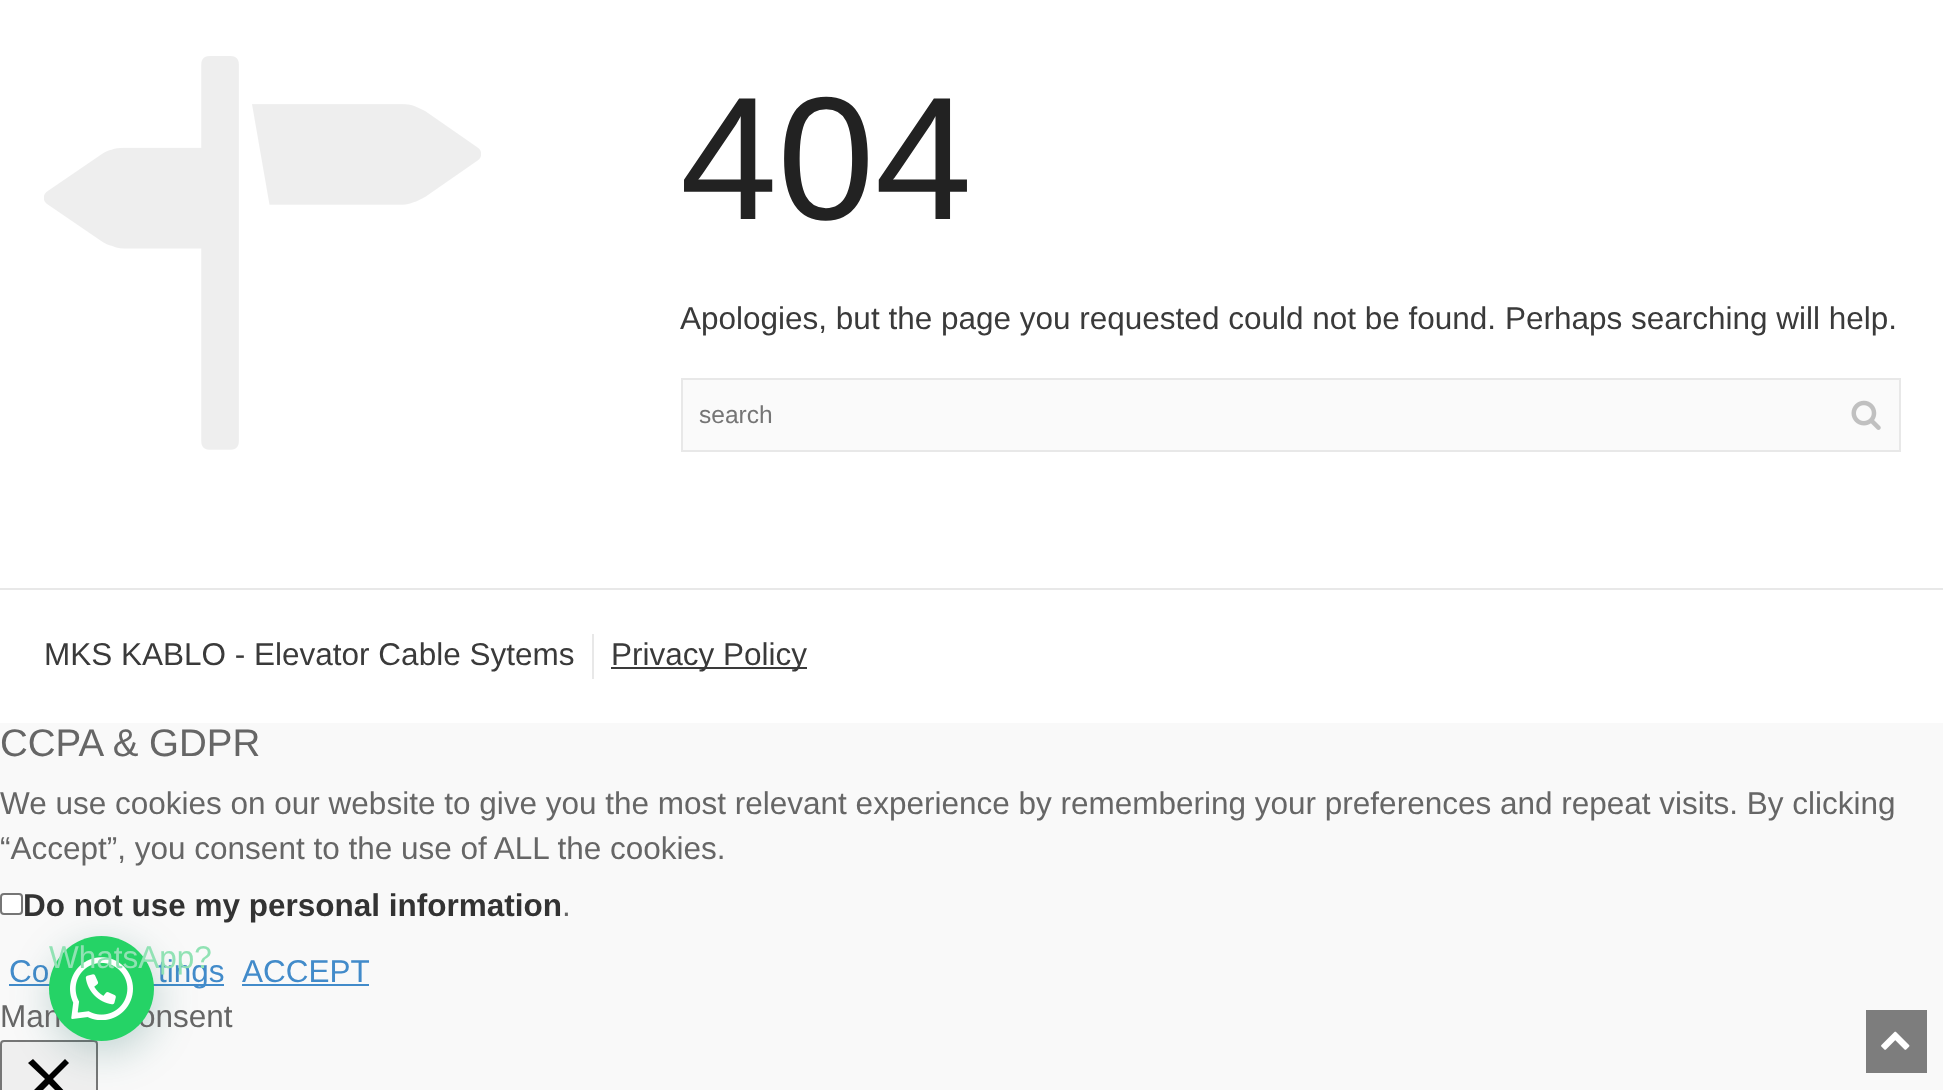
<!DOCTYPE html>
<meta charset="utf-8">
<style>body { margin: 0 } canvas { display: block }</style>
<canvas id="canvas" width="1943" height="1090"></canvas>
<script type="module">
  const canvas = document.getElementById("canvas");
  const ctx = canvas.getContext("2d");
  ctx.miterLimit = 4;
  ctx.fontKerning = "normal";
  async function loadImage(src) {
    const img = new Image();
    img.src = src;
    await img.decode();
    return img;
  }

  ctx.fillStyle = "#f9f9f9";
  ctx.fillRect(0, 0, 1943, 1090);
  ctx.fillStyle = "#ffffff";
  ctx.fillRect(0, 0, 1943, 588);
  ctx.drawImage(await loadImage("img1.png"), 44, 56, 437, 394);
  ctx.font = "175px Liberation Sans";
  ctx.fillStyle = "#222222";
  ctx.fillText("404", 680, 219);
  ctx.font = "31.5px Liberation Sans";
  ctx.fillStyle = "#3a3a3a";
  ctx.fillText("Apologies, but the page you requested could not be found. Perhaps searching will help.", 680, 329);
  ctx.fillStyle = "#fafafa";
  ctx.beginPath();
  ctx.rect(682, 379, 1218, 72);
  ctx.fill();
  ctx.strokeStyle = "#e8e8e8";
  ctx.lineWidth = 2;
  ctx.stroke();
  ctx.font = "24.5px Liberation Sans";
  ctx.fillStyle = "#757575";
  ctx.fillText("search", 699, 423);
  ctx.drawImage(await loadImage("img2.png"), 1851, 400, 30, 30);
  ctx.fillStyle = "#ffffff";
  ctx.fillRect(0, 590, 1943, 133);
  ctx.fillStyle = "#e8e8e8";
  ctx.fillRect(0, 588, 1943, 2);
  ctx.font = "31.5px Liberation Sans";
  ctx.fillStyle = "#3a3a3a";
  ctx.fillText("MKS KABLO - Elevator Cable Sytems", 44, 665);
  ctx.fillStyle = "#e8e8e8";
  ctx.fillRect(592, 634, 2, 45);
  ctx.fillStyle = "#3a3a3a";
  ctx.fillRect(611, 667, 196, 2);
  ctx.fillText("Privacy Policy", 611, 665);
  ctx.font = "38.5px Liberation Sans";
  ctx.fillStyle = "#666666";
  ctx.fillText("CCPA & GDPR", 0, 756);
  ctx.font = "31.5px Liberation Sans";
  ctx.fillText("We use cookies on our website to give you the most relevant experience by remembering your preferences and repeat visits. By clicking", 0, 814);
  ctx.fillText("“Accept”, you consent to the use of ALL the cookies.", 0, 859);
  ctx.fillStyle = "#ffffff";
  ctx.beginPath();
  ctx.roundRect(1, 894, 21, 20, 3);
  ctx.fill();
  ctx.strokeStyle = "#767676";
  ctx.stroke();
  ctx.font = "bold 31.5px Liberation Sans";
  ctx.fillStyle = "#333333";
  ctx.fillText("Do not use my personal information", 23, 916);
  ctx.font = "31.5px Liberation Sans";
  ctx.fillStyle = "#666666";
  ctx.fillText(".", 562, 916);
  ctx.fillStyle = "#428bca";
  ctx.fillText("Co", 9, 982);
  ctx.fillRect(9, 984, 215, 2);
  ctx.fillText("tings", 158, 982);
  ctx.fillText("ACCEPT", 242, 982);
  ctx.fillRect(242, 984, 127, 2);
  ctx.fillStyle = "#efefef";
  ctx.beginPath();
  ctx.roundRect(1, 1041, 96, 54, 3);
  ctx.fill();
  ctx.stroke();
  ctx.fillStyle = "#000000";
  ctx.beginPath();
  ctx.moveTo(69, 1063);
  ctx.lineTo(65, 1059);
  ctx.lineTo(49, 1075);
  ctx.lineTo(33, 1059);
  ctx.lineTo(28, 1063);
  ctx.lineTo(45, 1079);
  ctx.lineTo(28, 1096);
  ctx.lineTo(33, 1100);
  ctx.lineTo(49, 1084);
  ctx.lineTo(65, 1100);
  ctx.lineTo(69, 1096);
  ctx.lineTo(53, 1079);
  ctx.closePath();
  ctx.fill();
  ctx.fillStyle = "rgba(7, 94, 84, 0.24)";
  ctx.filter = "blur(21px)";
  ctx.beginPath();
  ctx.roundRect(51, 947, 105, 105, 52.5);
  ctx.fill();
  ctx.filter = "none";
  ctx.fillStyle = "#666666";
  ctx.fillText("Man", 0, 1027);
  ctx.fillText("onsent", 138, 1027);
  ctx.fillStyle = "#25d366";
  ctx.beginPath();
  ctx.arc(101.5, 988.5, 52.5, 0, Math.PI * 2);
  ctx.fill();
  ctx.drawImage(await loadImage("img3.png"), 70, 957, 63, 63);
  ctx.fillStyle = "#91e2b4";
  ctx.fillText("WhatsApp?", 49, 968);
  ctx.fillStyle = "#7d7d7d";
  ctx.fillRect(1866, 1010, 61, 63);
  ctx.drawImage(await loadImage("img4.png"), 1881, 1031, 29, 19);
</script>
